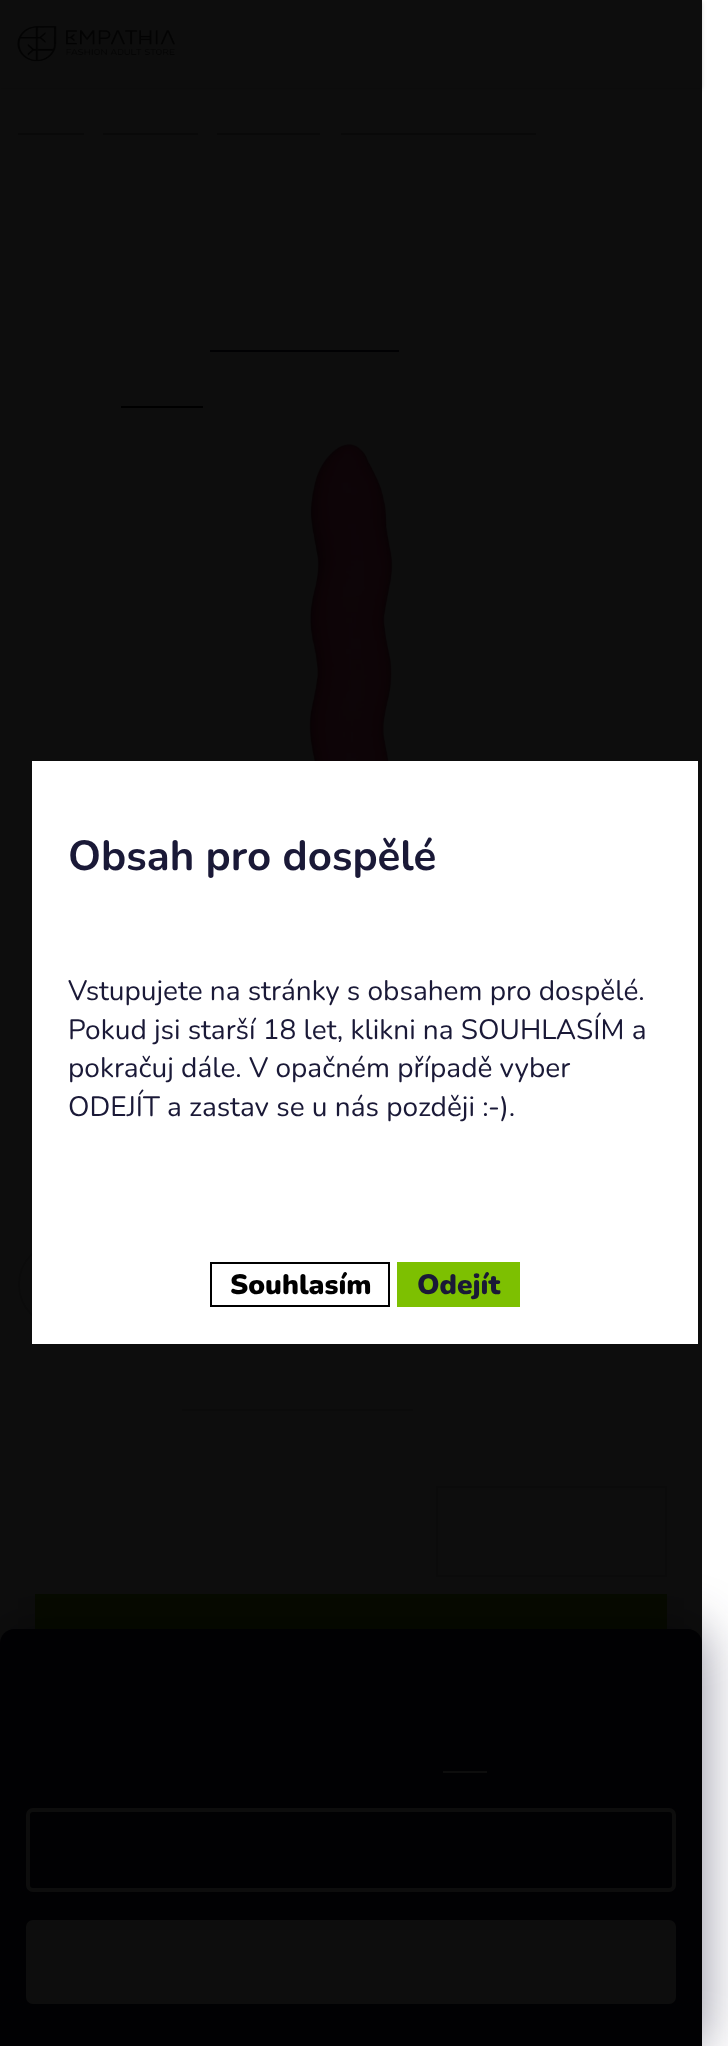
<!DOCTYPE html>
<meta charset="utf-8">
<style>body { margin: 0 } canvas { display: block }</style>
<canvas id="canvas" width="728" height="2046"></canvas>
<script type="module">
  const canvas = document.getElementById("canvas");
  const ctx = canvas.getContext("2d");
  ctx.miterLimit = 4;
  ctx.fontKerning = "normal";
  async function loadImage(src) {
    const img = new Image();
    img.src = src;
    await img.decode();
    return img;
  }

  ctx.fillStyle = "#ffffff";
  ctx.fillRect(0, 0, 728, 2046);
  ctx.fillStyle = "rgba(0, 0, 0, 0.16)";
  ctx.filter = "blur(2px)";
  ctx.beginPath();
  ctx.rect(0, 2, 702, 87);
  ctx.fill();
  ctx.filter = "none";
  ctx.fillStyle = "#ffffff";
  ctx.fillRect(0, 0, 702, 88);
  ctx.drawImage(await loadImage("img1.png"), 17, 26, 158, 36);
  ctx.fillStyle = "#aaaaaa";
  ctx.fillRect(18, 133, 66, 2);
  ctx.fillRect(103, 133, 95, 2);
  ctx.fillRect(217, 133, 103, 2);
  ctx.fillRect(341, 133, 195, 2);
  ctx.fillStyle = "#1a1937";
  ctx.fillRect(210, 350, 189, 2);
  ctx.fillStyle = "#000000";
  ctx.fillRect(121, 406, 82, 2);
  ctx.drawImage(await loadImage("img2.png"), 308, 441, 85, 320);
  ctx.beginPath();
  ctx.arc(61.5, 1284.5, 42.5, 0, Math.PI * 2);
  ctx.strokeStyle = "#cfcfcf";
  ctx.lineWidth = 2;
  ctx.stroke();
  ctx.fillStyle = "#cfcfcf";
  ctx.fillRect(182, 1409, 231, 2);
  ctx.fillStyle = "#f7f7f7";
  ctx.fillRect(18, 1468, 666, 161);
  ctx.fillStyle = "#ffffff";
  ctx.beginPath();
  ctx.rect(437, 1487, 229, 89);
  ctx.fill();
  ctx.stroke();
  ctx.fillStyle = "#7dc001";
  ctx.fillRect(35, 1594, 632, 35);
  ctx.fillStyle = "rgba(27, 25, 57, 0.5)";
  ctx.filter = "blur(26px)";
  ctx.beginPath();
  ctx.roundRect(0, 1629, 702, 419, 14);
  ctx.fill();
  ctx.filter = "none";
  ctx.fillStyle = "#1a1937";
  ctx.beginPath();
  ctx.moveTo(14, 1629);
  ctx.lineTo(688, 1629);
  ctx.bezierCurveTo(695.5, 1629, 702, 1635.5, 702, 1643);
  ctx.lineTo(702, 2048);
  ctx.lineTo(0, 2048);
  ctx.lineTo(0, 1643);
  ctx.bezierCurveTo(0, 1635.5, 6.5, 1629, 14, 1629);
  ctx.closePath();
  ctx.fill();
  ctx.fillStyle = "#f8fafb";
  ctx.fillRect(443, 1771, 44, 2);
  ctx.beginPath();
  ctx.roundRect(28, 1810, 646, 80, 5);
  ctx.strokeStyle = "#f8fafb";
  ctx.lineWidth = 4;
  ctx.stroke();
  ctx.beginPath();
  ctx.roundRect(26, 1920, 650, 84, 7);
  ctx.fill();
  ctx.fillStyle = "rgba(0, 0, 0, 0.95)";
  ctx.fillRect(0, 0, 702, 2046);
  ctx.fillStyle = "#ffffff";
  ctx.fillRect(32, 761, 666, 583);
  ctx.font = "bold 42px Nunito";
  ctx.fillStyle = "#1a1937";
  ctx.fillText("Obsah pro dospělé", 68, 870);
  ctx.font = "28px Nunito";
  ctx.fillText("Vstupujete na stránky s obsahem pro dospělé.", 68, 1000);
  ctx.fillText("Pokud jsi starší 18 let, klikni na SOUHLASÍM a", 68, 1039);
  ctx.fillText("pokračuj dále. V opačném případě vyber", 68, 1077);
  ctx.fillText("ODEJÍT a zastav se u nás později :-).", 68, 1116);
  ctx.strokeStyle = "#000000";
  ctx.lineWidth = 2;
  ctx.strokeRect(211, 1263, 178, 43);
  ctx.font = "900 28px Nunito";
  ctx.fillStyle = "#000000";
  ctx.fillText("Souhlasím", 230, 1294);
  ctx.fillStyle = "#7dc001";
  ctx.fillRect(397, 1262, 123, 45);
  ctx.fillStyle = "#1a1937";
  ctx.fillText("Odejít", 417, 1294);
</script>
